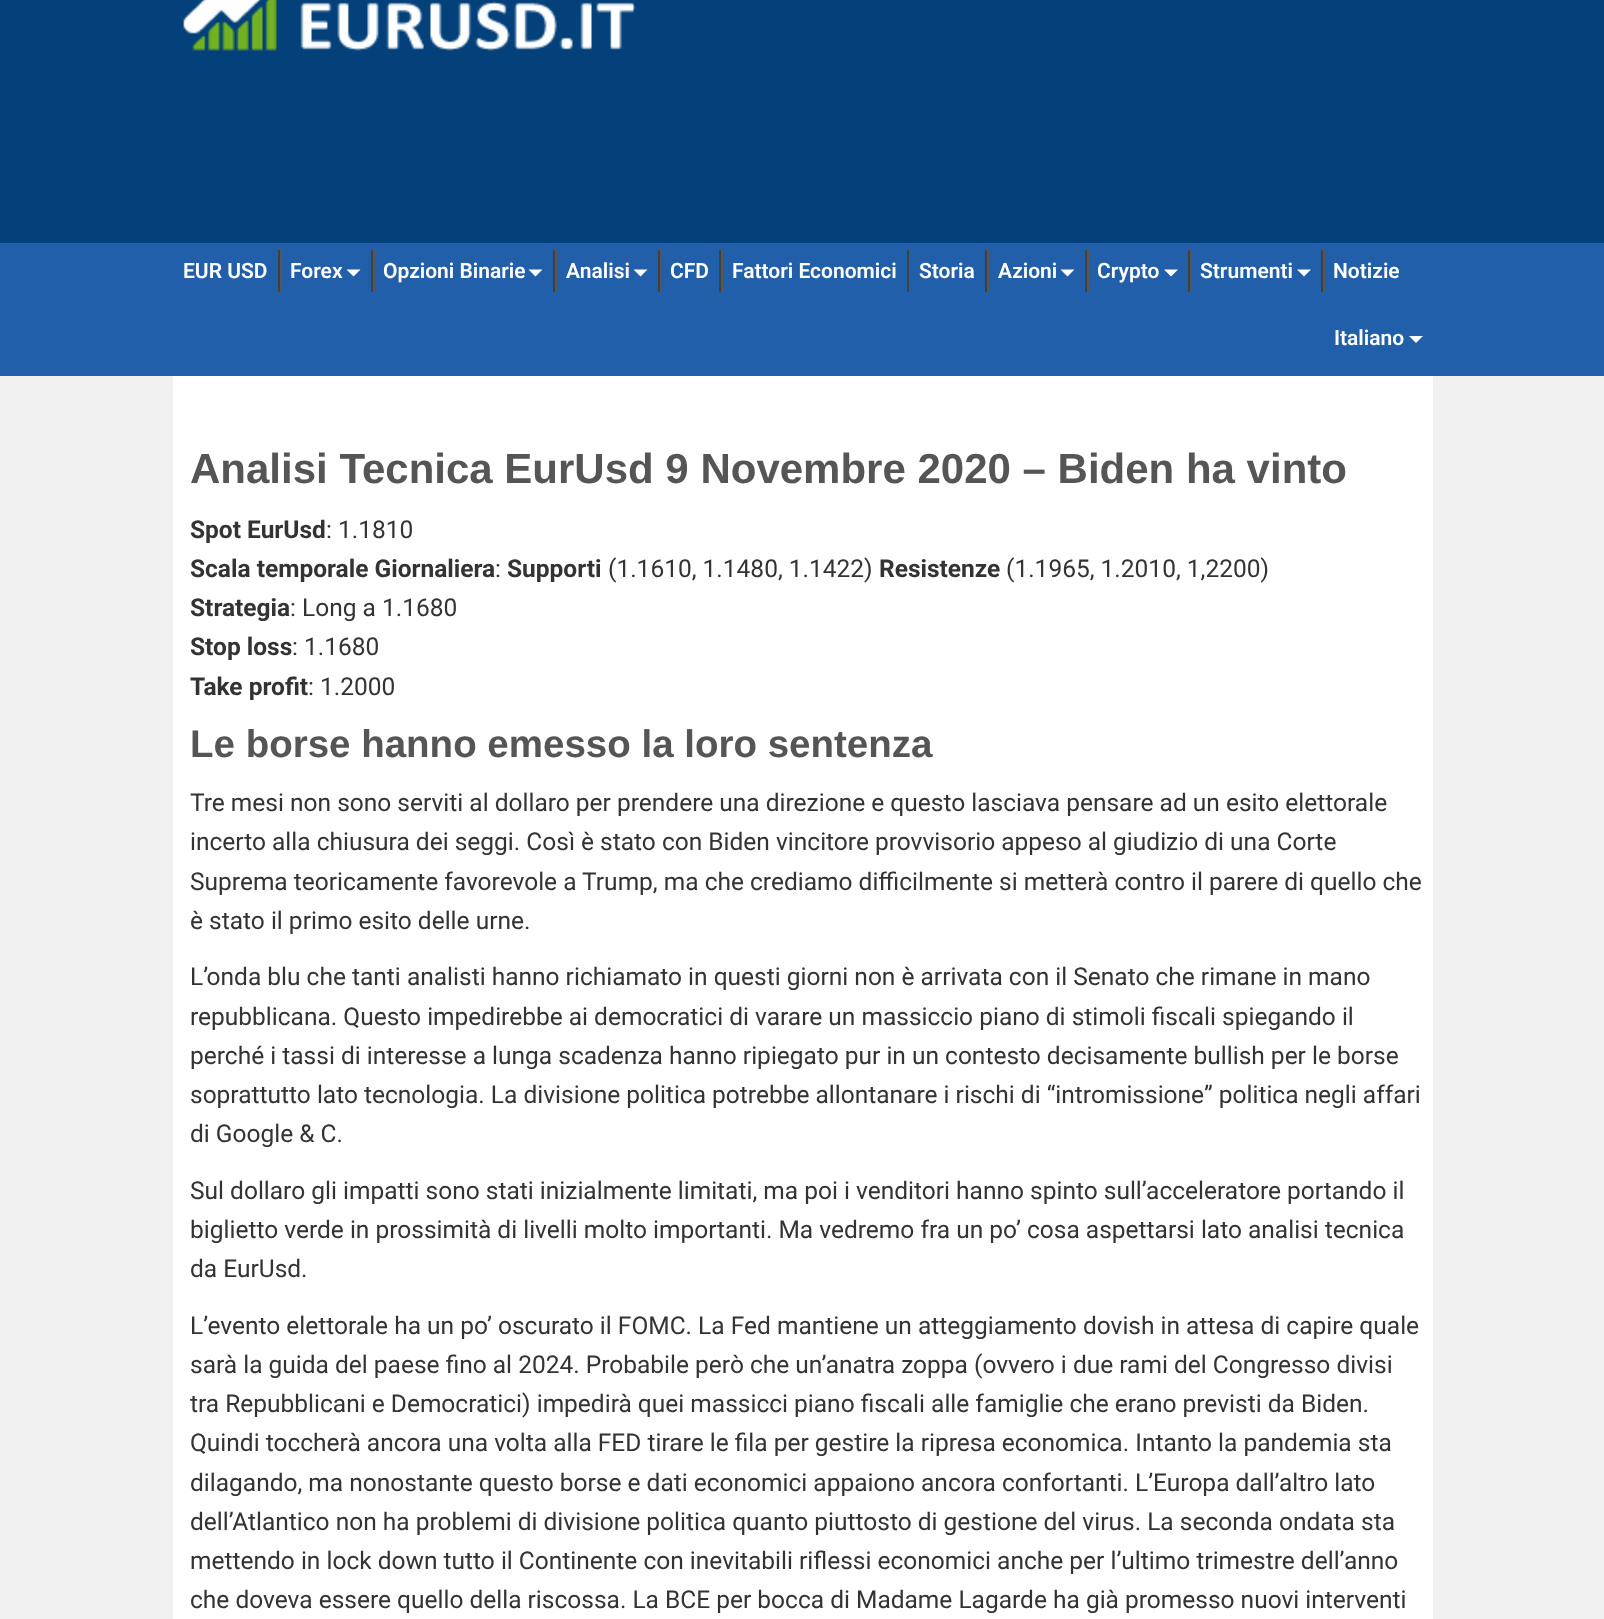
<!DOCTYPE html>
<meta charset="utf-8">
<style>body { margin: 0 } canvas { display: block }</style>
<canvas id="canvas" width="1604" height="1619"></canvas>
<script type="module">
  const canvas = document.getElementById("canvas");
  const ctx = canvas.getContext("2d");
  ctx.miterLimit = 4;
  ctx.fontKerning = "normal";
  async function loadImage(src) {
    const img = new Image();
    img.src = src;
    await img.decode();
    return img;
  }

  ctx.fillStyle = "#f1f1f1";
  ctx.fillRect(0, 0, 1604, 1619);
  ctx.fillStyle = "#04417a";
  ctx.fillRect(0, 0, 1604, 243);
  ctx.drawImage(await loadImage("img1.png"), 183, 0, 453, 51);
  ctx.fillStyle = "#215faa";
  ctx.fillRect(0, 243, 1604, 133);
  ctx.fillStyle = "#575757";
  ctx.beginPath();
  ctx.moveTo(175, 250);
  ctx.lineTo(280, 250);
  ctx.lineTo(280, 292);
  ctx.lineTo(282, 292);
  ctx.lineTo(282, 250);
  ctx.closePath();
  ctx.fill();
  ctx.fillStyle = "#414141";
  ctx.fillRect(278, 250, 2, 42);
  ctx.font = "600 21px Roboto";
  ctx.fillStyle = "#ffffff";
  ctx.fillText("EUR USD", 183, 278);
  ctx.fillStyle = "#575757";
  ctx.beginPath();
  ctx.moveTo(282, 250);
  ctx.lineTo(373, 250);
  ctx.lineTo(373, 292);
  ctx.lineTo(375, 292);
  ctx.lineTo(375, 250);
  ctx.closePath();
  ctx.fill();
  ctx.fillStyle = "#414141";
  ctx.fillRect(371, 250, 2, 42);
  ctx.fillStyle = "#ffffff";
  ctx.fillText("Forex", 290, 278);
  ctx.beginPath();
  ctx.moveTo(346.5, 269.5);
  ctx.lineTo(360.5, 269.5);
  ctx.lineTo(353.5, 276.5);
  ctx.closePath();
  ctx.fill();
  ctx.fillStyle = "#575757";
  ctx.beginPath();
  ctx.moveTo(375, 250);
  ctx.lineTo(555, 250);
  ctx.lineTo(555, 292);
  ctx.lineTo(557, 292);
  ctx.lineTo(557, 250);
  ctx.closePath();
  ctx.fill();
  ctx.fillStyle = "#414141";
  ctx.fillRect(553, 250, 2, 42);
  ctx.fillStyle = "#ffffff";
  ctx.fillText("Opzioni Binarie", 383, 278);
  ctx.beginPath();
  ctx.moveTo(528.5, 269.5);
  ctx.lineTo(542.5, 269.5);
  ctx.lineTo(535.5, 276.5);
  ctx.closePath();
  ctx.fill();
  ctx.fillStyle = "#575757";
  ctx.beginPath();
  ctx.moveTo(557, 250);
  ctx.lineTo(660, 250);
  ctx.lineTo(660, 292);
  ctx.lineTo(662, 292);
  ctx.lineTo(662, 250);
  ctx.closePath();
  ctx.fill();
  ctx.fillStyle = "#414141";
  ctx.fillRect(658, 250, 2, 42);
  ctx.fillStyle = "#ffffff";
  ctx.fillText("Analisi", 566, 278);
  ctx.beginPath();
  ctx.moveTo(633.5, 269.5);
  ctx.lineTo(647.5, 269.5);
  ctx.lineTo(640.5, 276.5);
  ctx.closePath();
  ctx.fill();
  ctx.fillStyle = "#575757";
  ctx.beginPath();
  ctx.moveTo(662, 250);
  ctx.lineTo(721, 250);
  ctx.lineTo(721, 292);
  ctx.lineTo(723, 292);
  ctx.lineTo(723, 250);
  ctx.closePath();
  ctx.fill();
  ctx.fillStyle = "#414141";
  ctx.fillRect(719, 250, 2, 42);
  ctx.fillStyle = "#ffffff";
  ctx.fillText("CFD", 670, 278);
  ctx.fillStyle = "#575757";
  ctx.beginPath();
  ctx.moveTo(723, 250);
  ctx.lineTo(908, 250);
  ctx.lineTo(908, 292);
  ctx.lineTo(910, 292);
  ctx.lineTo(910, 250);
  ctx.closePath();
  ctx.fill();
  ctx.fillStyle = "#414141";
  ctx.fillRect(907, 250, 2, 42);
  ctx.fillStyle = "#ffffff";
  ctx.fillText("Fattori Economici", 732, 278);
  ctx.fillStyle = "#575757";
  ctx.beginPath();
  ctx.moveTo(910, 250);
  ctx.lineTo(987, 250);
  ctx.lineTo(987, 292);
  ctx.lineTo(989, 292);
  ctx.lineTo(989, 250);
  ctx.closePath();
  ctx.fill();
  ctx.fillStyle = "#414141";
  ctx.fillRect(985, 250, 2, 42);
  ctx.fillStyle = "#ffffff";
  ctx.fillText("Storia", 919, 278);
  ctx.fillStyle = "#575757";
  ctx.beginPath();
  ctx.moveTo(989, 250);
  ctx.lineTo(1087, 250);
  ctx.lineTo(1087, 292);
  ctx.lineTo(1089, 292);
  ctx.lineTo(1089, 250);
  ctx.closePath();
  ctx.fill();
  ctx.fillStyle = "#414141";
  ctx.fillRect(1085, 250, 2, 42);
  ctx.fillStyle = "#ffffff";
  ctx.fillText("Azioni", 998, 278);
  ctx.beginPath();
  ctx.moveTo(1060.5, 269.5);
  ctx.lineTo(1074.5, 269.5);
  ctx.lineTo(1067.5, 276.5);
  ctx.closePath();
  ctx.fill();
  ctx.fillStyle = "#575757";
  ctx.beginPath();
  ctx.moveTo(1089, 250);
  ctx.lineTo(1190, 250);
  ctx.lineTo(1190, 292);
  ctx.lineTo(1192, 292);
  ctx.lineTo(1192, 250);
  ctx.closePath();
  ctx.fill();
  ctx.fillStyle = "#414141";
  ctx.fillRect(1188, 250, 2, 42);
  ctx.fillStyle = "#ffffff";
  ctx.fillText("Crypto", 1097, 278);
  ctx.beginPath();
  ctx.moveTo(1164, 269.5);
  ctx.lineTo(1178, 269.5);
  ctx.lineTo(1171, 276.5);
  ctx.closePath();
  ctx.fill();
  ctx.fillStyle = "#575757";
  ctx.beginPath();
  ctx.moveTo(1192, 250);
  ctx.lineTo(1323, 250);
  ctx.lineTo(1323, 292);
  ctx.lineTo(1325, 292);
  ctx.lineTo(1325, 250);
  ctx.closePath();
  ctx.fill();
  ctx.fillStyle = "#414141";
  ctx.fillRect(1321, 250, 2, 42);
  ctx.fillStyle = "#ffffff";
  ctx.fillText("Strumenti", 1200, 278);
  ctx.beginPath();
  ctx.moveTo(1297, 269.5);
  ctx.lineTo(1311, 269.5);
  ctx.lineTo(1304, 276.5);
  ctx.closePath();
  ctx.fill();
  ctx.fillText("Notizie", 1333, 278);
  ctx.fillText("Italiano", 1334, 345);
  ctx.beginPath();
  ctx.moveTo(1409, 336);
  ctx.lineTo(1423, 336);
  ctx.lineTo(1416, 343);
  ctx.closePath();
  ctx.fill();
  ctx.fillRect(173, 376, 1260, 1243);
  ctx.font = "bold 42px Liberation Sans";
  ctx.fillStyle = "#555555";
  ctx.fillText("Analisi Tecnica EurUsd 9 Novembre 2020 – Biden ha vinto", 190, 483);
  ctx.font = "bold 24.5px Roboto";
  ctx.fillStyle = "#333333";
  ctx.fillText("Spot EurUsd", 190, 538);
  ctx.font = "24.5px Roboto";
  ctx.fillText(": 1.1810", 326, 538);
  ctx.font = "bold 24.5px Roboto";
  ctx.fillText("Scala temporale Giornaliera", 190, 577);
  ctx.font = "24.5px Roboto";
  ctx.fillText(":", 495, 577);
  ctx.font = "bold 24.5px Roboto";
  ctx.fillText("Supporti", 507, 577);
  ctx.font = "24.5px Roboto";
  ctx.fillText("(1.1610, 1.1480, 1.1422)", 608, 577);
  ctx.font = "bold 24.5px Roboto";
  ctx.fillText("Resistenze", 879, 577);
  ctx.font = "24.5px Roboto";
  ctx.fillText("(1.1965, 1.2010, 1,2200)", 1006, 577);
  ctx.font = "bold 24.5px Roboto";
  ctx.fillText("Strategia", 190, 616);
  ctx.font = "24.5px Roboto";
  ctx.fillText(": Long a 1.1680", 290, 616);
  ctx.font = "bold 24.5px Roboto";
  ctx.fillText("Stop loss", 190, 655);
  ctx.font = "24.5px Roboto";
  ctx.fillText(": 1.1680", 292, 655);
  ctx.font = "bold 24.5px Roboto";
  ctx.fillText("Take profit", 190, 695);
  ctx.font = "24.5px Roboto";
  ctx.fillText(": 1.2000", 308, 695);
  ctx.font = "bold 38.5px Liberation Sans";
  ctx.fillStyle = "#555555";
  ctx.fillText("Le borse hanno emesso la loro sentenza", 190, 757);
  ctx.font = "24.5px Roboto";
  ctx.fillStyle = "#333333";
  ctx.fillText("Tre mesi non sono serviti al dollaro per prendere una direzione e questo lasciava pensare ad un esito elettorale", 190, 811);
  ctx.fillText("incerto alla chiusura dei seggi. Così è stato con Biden vincitore provvisorio appeso al giudizio di una Corte", 190, 850);
  ctx.fillText("Suprema teoricamente favorevole a Trump, ma che crediamo difficilmente si metterà contro il parere di quello che", 190, 890);
  ctx.fillText("è stato il primo esito delle urne.", 190, 929);
  ctx.fillText("L’onda blu che tanti analisti hanno richiamato in questi giorni non è arrivata con il Senato che rimane in mano", 190, 985);
  ctx.fillText("repubblicana. Questo impedirebbe ai democratici di varare un massiccio piano di stimoli fiscali spiegando il", 190, 1025);
  ctx.fillText("perché i tassi di interesse a lunga scadenza hanno ripiegato pur in un contesto decisamente bullish per le borse", 190, 1064);
  ctx.fillText("soprattutto lato tecnologia. La divisione politica potrebbe allontanare i rischi di “intromissione” politica negli affari", 190, 1103);
  ctx.fillText("di Google & C.", 190, 1142);
  ctx.fillText("Sul dollaro gli impatti sono stati inizialmente limitati, ma poi i venditori hanno spinto sull’acceleratore portando il", 190, 1199);
  ctx.fillText("biglietto verde in prossimità di livelli molto importanti. Ma vedremo fra un po’ cosa aspettarsi lato analisi tecnica", 190, 1238);
  ctx.fillText("da EurUsd.", 190, 1277);
  ctx.fillText("L’evento elettorale ha un po’ oscurato il FOMC. La Fed mantiene un atteggiamento dovish in attesa di capire quale", 190, 1334);
  ctx.fillText("sarà la guida del paese fino al 2024. Probabile però che un’anatra zoppa (ovvero i due rami del Congresso divisi", 190, 1373);
  ctx.fillText("tra Repubblicani e Democratici) impedirà quei massicci piano fiscali alle famiglie che erano previsti da Biden.", 190, 1412);
  ctx.fillText("Quindi toccherà ancora una volta alla FED tirare le fila per gestire la ripresa economica. Intanto la pandemia sta", 190, 1451);
  ctx.fillText("dilagando, ma nonostante questo borse e dati economici appaiono ancora confortanti. L’Europa dall’altro lato", 190, 1491);
  ctx.fillText("dell’Atlantico non ha problemi di divisione politica quanto piuttosto di gestione del virus. La seconda ondata sta", 190, 1530);
  ctx.fillText("mettendo in lock down tutto il Continente con inevitabili riflessi economici anche per l’ultimo trimestre dell’anno", 190, 1569);
  ctx.fillText("che doveva essere quello della riscossa. La BCE per bocca di Madame Lagarde ha già promesso nuovi interventi", 190, 1608);
</script>
